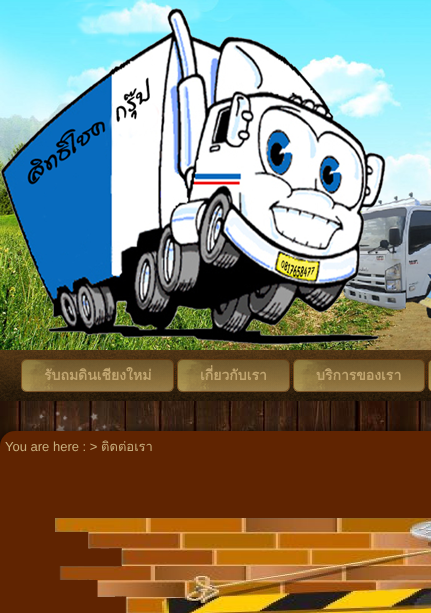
<!DOCTYPE html>
<meta charset="utf-8">
<style>body { margin: 0 } canvas { display: block }</style>
<canvas id="canvas" width="431" height="613"></canvas>
<script type="module">
  const canvas = document.getElementById("canvas");
  const ctx = canvas.getContext("2d");
  ctx.miterLimit = 4;
  ctx.fontKerning = "normal";
  async function loadImage(src) {
    const img = new Image();
    img.src = src;
    await img.decode();
    return img;
  }

  ctx.fillStyle = "#ffffff";
  ctx.fillRect(0, 0, 431, 613);
  ctx.drawImage(await loadImage("img1.png"), 0, 401, 431, 45);
  ctx.drawImage(await loadImage("img2.png"), 0, 0, 431, 350);
  ctx.drawImage(await loadImage("img3.png"), 0, 350, 431, 51);
  ctx.drawImage(await loadImage("img4.png"), 21, 359, 153, 33);
  ctx.beginPath();
  ctx.roundRect(21.5, 359.5, 152, 32, 5.5);
  ctx.strokeStyle = "rgba(96, 42, 1, 0.6)";
  ctx.stroke();
  ctx.font = "bold 14px Loma";
  ctx.fillStyle = "#c1a671";
  ctx.fillText("รับถมดินเชียงใหม่", 44, 380);
  ctx.drawImage(await loadImage("img5.png"), 175, 365, 1, 19);
  ctx.drawImage(await loadImage("img6.png"), 177, 359, 113, 33);
  ctx.beginPath();
  ctx.roundRect(177.5, 359.5, 112, 32, 5.5);
  ctx.stroke();
  ctx.fillText("เกี่ยวกับเรา", 200, 380);
  ctx.drawImage(await loadImage("img7.png"), 291, 365, 1, 19);
  ctx.drawImage(await loadImage("img8.png"), 293, 359, 132, 33);
  ctx.beginPath();
  ctx.roundRect(293.5, 359.5, 131, 32, 5.5);
  ctx.stroke();
  ctx.fillText("บริการของเรา", 316, 380);
  ctx.drawImage(await loadImage("img9.png"), 426, 365, 1, 19);
  ctx.drawImage(await loadImage("img10.png"), 428, 360, 3, 31);
  ctx.beginPath();
  ctx.roundRect(428.5, 359.5, 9, 32, 5.5);
  ctx.stroke();
  ctx.fillStyle = "rgba(0, 0, 0, 0.3)";
  ctx.filter = "blur(2.5px)";
  ctx.beginPath();
  ctx.roundRect(-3, 428, 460, 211, 18);
  ctx.fill();
  ctx.filter = "none";
  ctx.fillStyle = "#602401";
  ctx.beginPath();
  ctx.roundRect(0, 431, 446, 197, 15);
  ctx.fill();
  ctx.font = "13px Liberation Sans";
  ctx.fillStyle = "#c7af7f";
  ctx.fillText("You are here : >", 5, 451);
  ctx.font = "13px Loma";
  ctx.fillText("ติดต่อเรา", 101, 451);
  ctx.drawImage(await loadImage("img11.png"), 55, 518, 376, 95);
</script>
